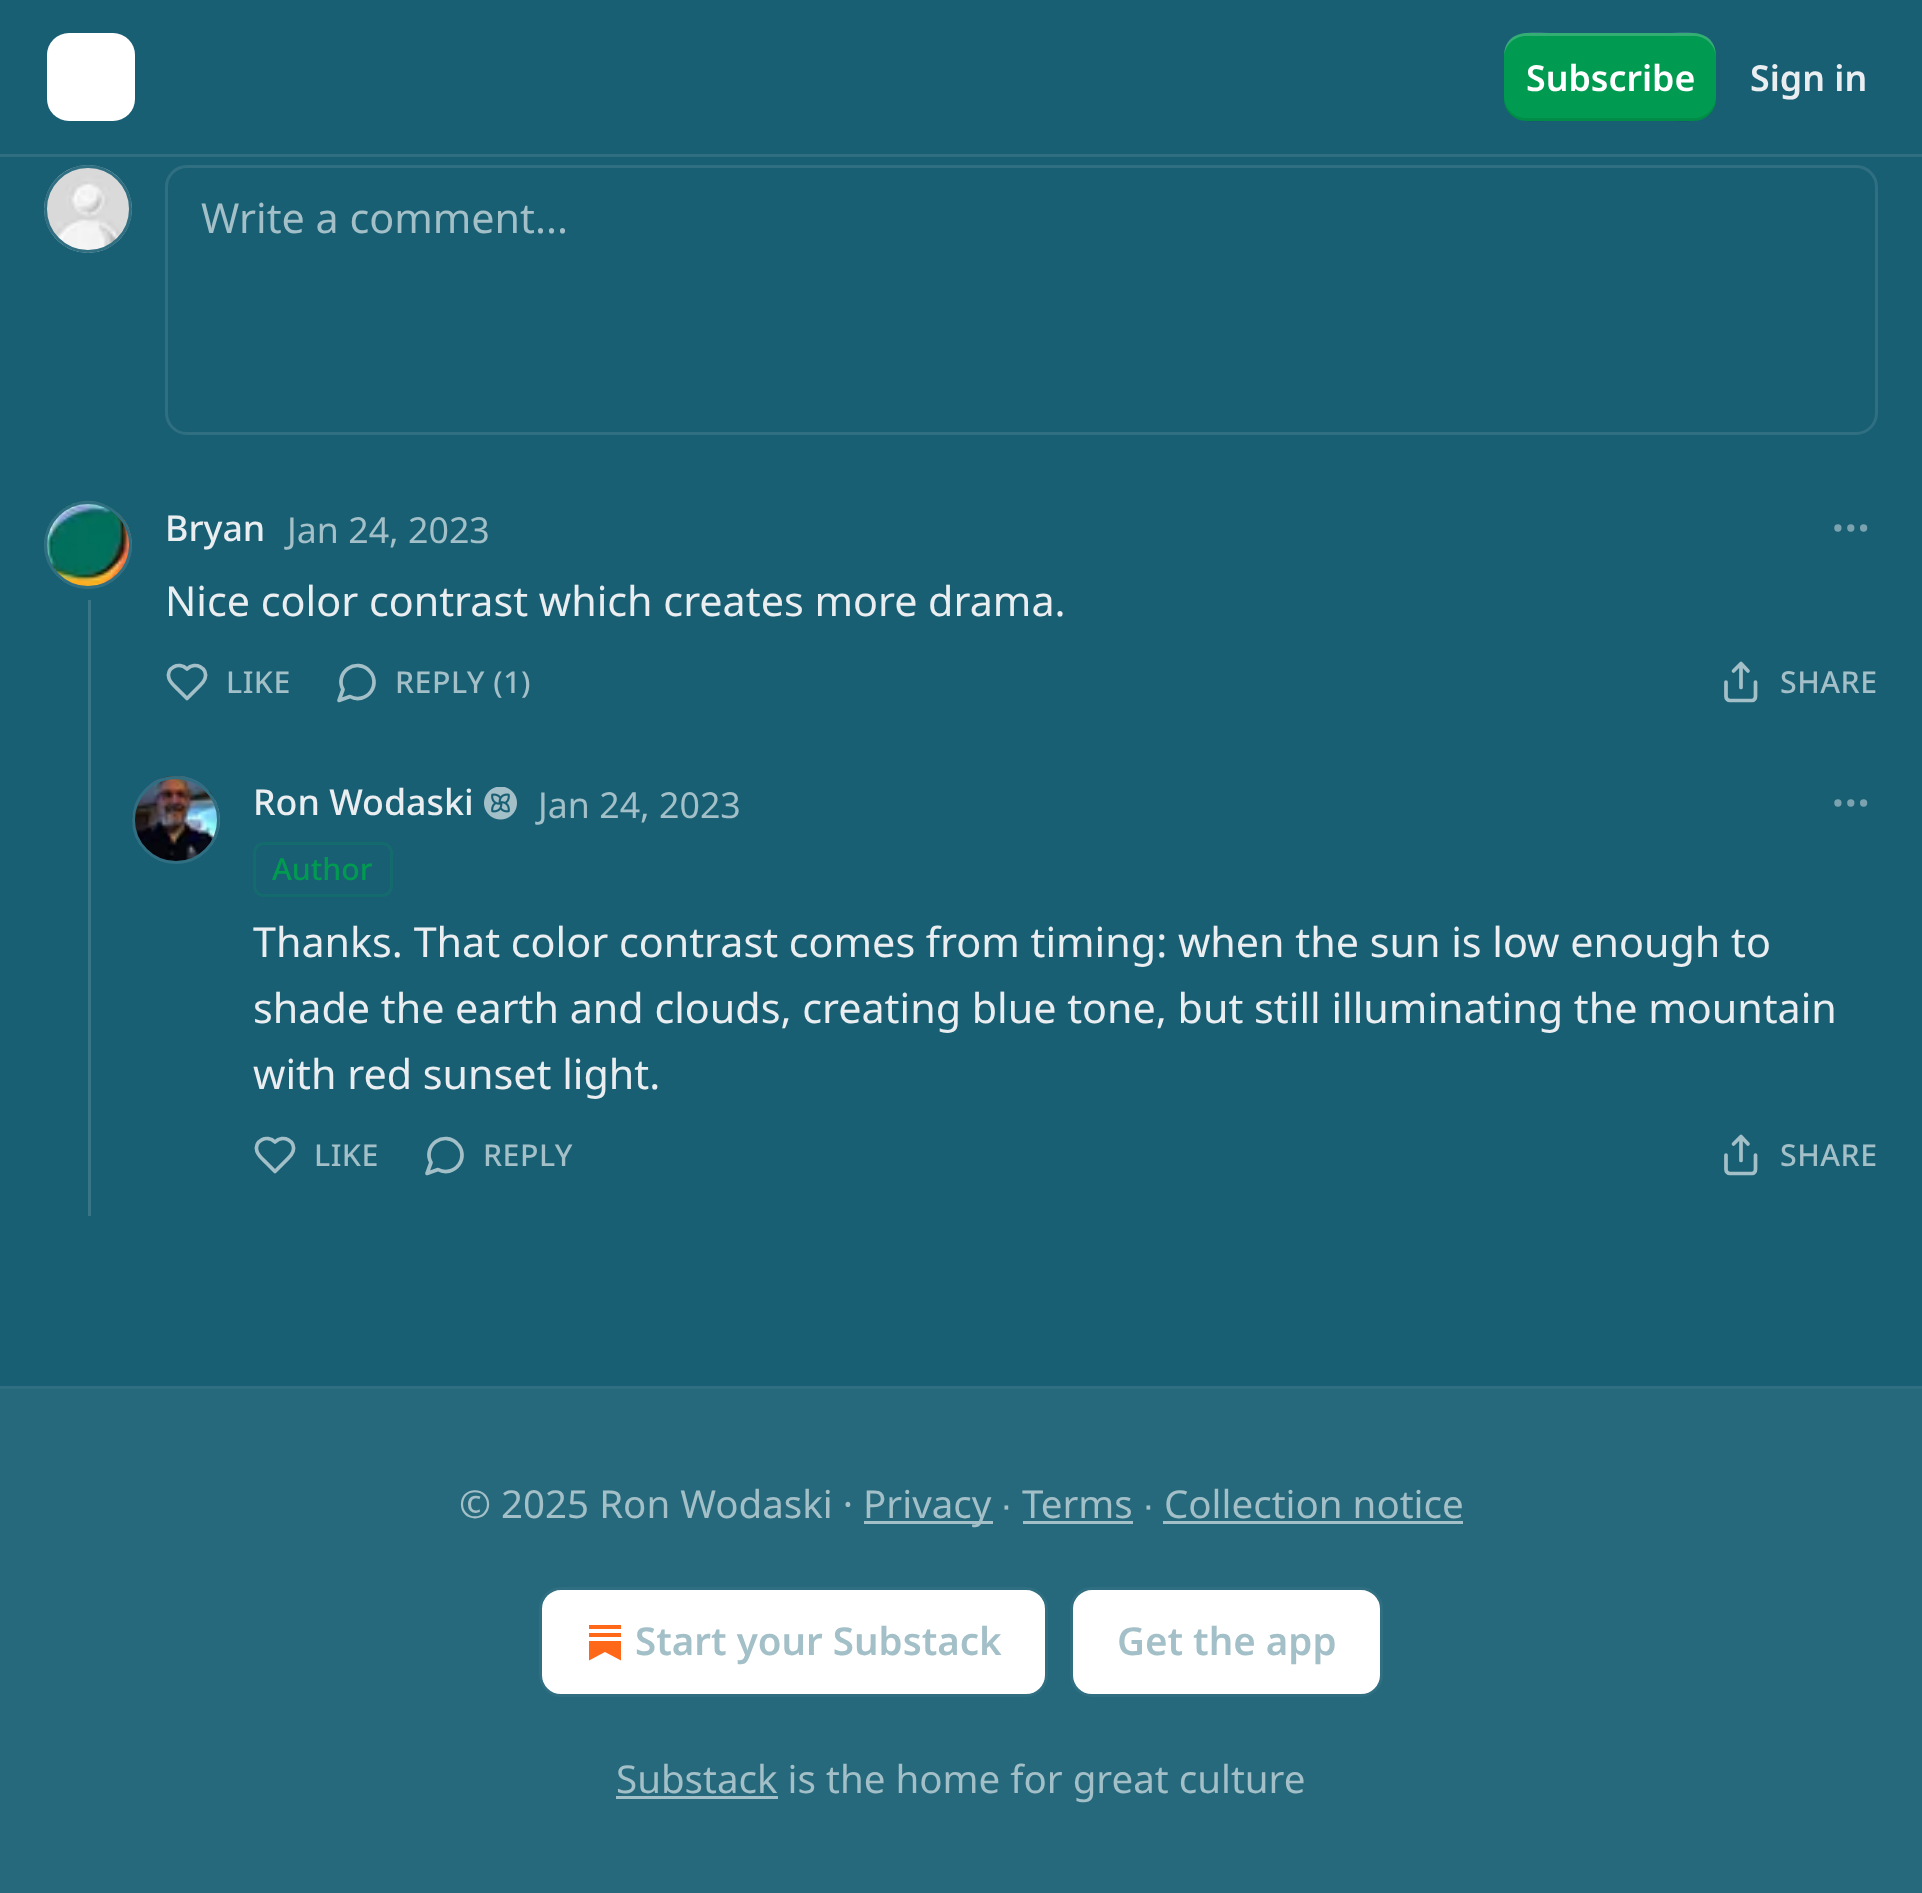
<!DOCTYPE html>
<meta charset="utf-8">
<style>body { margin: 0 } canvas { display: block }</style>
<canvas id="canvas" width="1922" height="1893"></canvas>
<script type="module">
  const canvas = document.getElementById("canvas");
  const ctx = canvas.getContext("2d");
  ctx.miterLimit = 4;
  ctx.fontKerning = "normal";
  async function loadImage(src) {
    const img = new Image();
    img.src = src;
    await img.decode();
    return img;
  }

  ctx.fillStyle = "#195f74";
  ctx.fillRect(0, 0, 1922, 1893);
  ctx.fillStyle = "#306f82";
  ctx.fillRect(0, 154, 1922, 3);
  ctx.fillStyle = "#ffffff";
  ctx.beginPath();
  ctx.roundRect(47, 33, 88, 88, 22);
  ctx.fill();
  ctx.fillStyle = "#009b50";
  ctx.beginPath();
  ctx.roundRect(1504, 33, 212, 88, 22);
  ctx.fill();
  ctx.fillStyle = "rgba(0, 0, 0, 0.1)";
  ctx.beginPath();
  ctx.moveTo(1504, 96);
  ctx.bezierCurveTo(1504, 127, 1532, 121, 1554, 121);
  ctx.lineTo(1666, 121);
  ctx.bezierCurveTo(1688, 121, 1716, 127, 1716, 96);
  ctx.bezierCurveTo(1716, 108, 1706, 118, 1694, 118);
  ctx.lineTo(1526, 118);
  ctx.bezierCurveTo(1514, 118, 1504, 108, 1504, 96);
  ctx.closePath();
  ctx.fill();
  ctx.fillStyle = "rgba(255, 255, 255, 0.2)";
  ctx.beginPath();
  ctx.moveTo(1526, 36);
  ctx.lineTo(1694, 36);
  ctx.bezierCurveTo(1706, 36, 1716, 46, 1716, 58);
  ctx.bezierCurveTo(1716, 27, 1688, 33, 1666, 33);
  ctx.lineTo(1554, 33);
  ctx.bezierCurveTo(1532, 33, 1504, 27, 1504, 58);
  ctx.bezierCurveTo(1504, 46, 1514, 36, 1526, 36);
  ctx.closePath();
  ctx.fill();
  ctx.font = "600 35.75px Noto Sans";
  ctx.fillStyle = "#ffffff";
  ctx.fillText("Subscribe", 1526, 91);
  ctx.fillStyle = "#eaeef0";
  ctx.fillText("Sign in", 1750, 91);
  ctx.beginPath();
  ctx.arc(88, 209, 42.5, 0, Math.PI * 2);
  ctx.strokeStyle = "#306f82";
  ctx.lineWidth = 3;
  ctx.stroke();
  ctx.drawImage(await loadImage("img1.png"), 44, 165, 88, 88);
  ctx.beginPath();
  ctx.arc(88, 209, 42.5, 0, Math.PI * 2);
  ctx.stroke();
  ctx.beginPath();
  ctx.roundRect(166.5, 166.5, 1710, 267, 20.5);
  ctx.stroke();
  ctx.font = "41.25px Noto Sans";
  ctx.fillStyle = "#a3bfc7";
  ctx.fillText("Write a comment...", 201, 233);
  ctx.fillStyle = "#387587";
  ctx.fillRect(88, 600, 3, 616);
  ctx.beginPath();
  ctx.arc(88, 545, 42.5, 0, Math.PI * 2);
  ctx.stroke();
  ctx.drawImage(await loadImage("img2.png"), 44, 500, 88, 89);
  ctx.beginPath();
  ctx.arc(88, 545, 42.5, 0, Math.PI * 2);
  ctx.stroke();
  ctx.font = "500 35.75px Noto Sans";
  ctx.fillStyle = "#eaeef0";
  ctx.fillText("Bryan", 165, 541);
  ctx.font = "35.75px Noto Sans";
  ctx.fillStyle = "#a3bfc7";
  ctx.fillText("Jan 24, 2023", 287, 543);
  ctx.beginPath();
  ctx.arc(1850.8, 528, 1.8, 0, Math.PI * 2);
  ctx.strokeStyle = "#7ba3af";
  ctx.lineWidth = 3.7;
  ctx.stroke();
  ctx.beginPath();
  ctx.arc(1863.6, 528, 1.8, 0, Math.PI * 2);
  ctx.stroke();
  ctx.beginPath();
  ctx.arc(1837.9, 528, 1.8, 0, Math.PI * 2);
  ctx.stroke();
  ctx.font = "41.25px Noto Sans";
  ctx.fillStyle = "#eaeef0";
  ctx.fillText("Nice color contrast which creates more drama.", 165, 616);
  ctx.beginPath();
  ctx.moveTo(200, 685.5);
  ctx.bezierCurveTo(202, 683.5, 204, 681.5, 205, 678.5);
  ctx.bezierCurveTo(208.5, 668, 195, 661, 187, 669);
  ctx.bezierCurveTo(179, 661, 165.5, 668, 169, 678.5);
  ctx.bezierCurveTo(170.5, 683, 175, 686.5, 178.5, 690);
  ctx.lineTo(187, 698.5);
  ctx.closePath();
  ctx.strokeStyle = "#a3bfc7";
  ctx.lineCap = "round";
  ctx.lineJoin = "round";
  ctx.stroke();
  ctx.letterSpacing = "0.5px";
  ctx.font = "500 30.25px Noto Sans";
  ctx.fillStyle = "#a3bfc7";
  ctx.fillText("LIKE", 226, 693);
  ctx.beginPath();
  ctx.moveTo(350, 696.5);
  ctx.bezierCurveTo(357, 700.5, 366, 698.5, 371, 691.5);
  ctx.bezierCurveTo(375.5, 685, 375, 676, 369, 670.5);
  ctx.bezierCurveTo(363.5, 664.5, 354.5, 664, 348, 668.5);
  ctx.bezierCurveTo(341, 673.5, 339, 682.5, 343, 689.5);
  ctx.lineTo(339, 700.5);
  ctx.closePath();
  ctx.stroke();
  ctx.fillText("REPLY (1)", 395, 693);
  ctx.beginPath();
  ctx.moveTo(1726, 682);
  ctx.lineTo(1726, 696.5);
  ctx.bezierCurveTo(1726, 698.5, 1727.5, 700.5, 1730, 700.5);
  ctx.lineTo(1752, 700.5);
  ctx.bezierCurveTo(1754, 700.5, 1755.5, 698.5, 1755.5, 696.5);
  ctx.lineTo(1755.5, 682);
  ctx.moveTo(1748, 671);
  ctx.lineTo(1741, 663.5);
  ctx.lineTo(1733.5, 671);
  ctx.moveTo(1741, 663.5);
  ctx.lineTo(1741, 687.5);
  ctx.stroke();
  ctx.fillText("SHARE", 1780, 693);
  ctx.beginPath();
  ctx.arc(176, 820, 42.5, 0, Math.PI * 2);
  ctx.strokeStyle = "#306f82";
  ctx.lineWidth = 3;
  ctx.stroke();
  ctx.drawImage(await loadImage("img3.png"), 132, 775, 88, 89);
  ctx.beginPath();
  ctx.arc(176, 820, 42.5, 0, Math.PI * 2);
  ctx.stroke();
  ctx.letterSpacing = "0px";
  ctx.font = "500 35.75px Noto Sans";
  ctx.fillStyle = "#eaeef0";
  ctx.fillText("Ron Wodaski", 253, 815);
  ctx.drawImage(await loadImage("img4.png"), 484, 787, 33, 33);
  ctx.font = "35.75px Noto Sans";
  ctx.fillStyle = "#a3bfc7";
  ctx.fillText("Jan 24, 2023", 538, 818);
  ctx.beginPath();
  ctx.roundRect(254.5, 843.5, 137, 52, 9.5);
  ctx.strokeStyle = "#146b6d";
  ctx.lineJoin = "miter";
  ctx.stroke();
  ctx.font = "500 30.25px Noto Sans";
  ctx.fillStyle = "#009b50";
  ctx.fillText("Author", 272, 880);
  ctx.beginPath();
  ctx.arc(1850.8, 803, 1.8, 0, Math.PI * 2);
  ctx.strokeStyle = "#7ba3af";
  ctx.lineWidth = 3.7;
  ctx.stroke();
  ctx.beginPath();
  ctx.arc(1863.6, 803, 1.8, 0, Math.PI * 2);
  ctx.stroke();
  ctx.beginPath();
  ctx.arc(1837.9, 803, 1.8, 0, Math.PI * 2);
  ctx.stroke();
  ctx.font = "41.25px Noto Sans";
  ctx.fillStyle = "#eaeef0";
  ctx.fillText("Thanks. That color contrast comes from timing: when the sun is low enough to", 253, 957);
  ctx.fillText("shade the earth and clouds, creating blue tone, but still illuminating the mountain", 253, 1023);
  ctx.fillText("with red sunset light.", 253, 1089);
  ctx.beginPath();
  ctx.moveTo(288, 1158.5);
  ctx.bezierCurveTo(290, 1156.5, 292, 1154.5, 293, 1151.5);
  ctx.bezierCurveTo(296.5, 1141, 283, 1134, 275, 1142);
  ctx.bezierCurveTo(267, 1134, 253.5, 1141, 257, 1151.5);
  ctx.bezierCurveTo(258.5, 1156, 263, 1159.5, 266.5, 1163);
  ctx.lineTo(275, 1171.5);
  ctx.closePath();
  ctx.strokeStyle = "#a3bfc7";
  ctx.lineJoin = "round";
  ctx.stroke();
  ctx.letterSpacing = "0.5px";
  ctx.font = "500 30.25px Noto Sans";
  ctx.fillStyle = "#a3bfc7";
  ctx.fillText("LIKE", 314, 1166);
  ctx.beginPath();
  ctx.moveTo(438, 1169.5);
  ctx.bezierCurveTo(445, 1173.5, 454, 1171.5, 459, 1164.5);
  ctx.bezierCurveTo(463.5, 1158, 463, 1149, 457, 1143.5);
  ctx.bezierCurveTo(451.5, 1137.5, 442.5, 1137, 436, 1141.5);
  ctx.bezierCurveTo(429, 1146.5, 427, 1155.5, 431, 1162.5);
  ctx.lineTo(427, 1173.5);
  ctx.closePath();
  ctx.stroke();
  ctx.fillText("REPLY", 483, 1166);
  ctx.beginPath();
  ctx.moveTo(1726, 1155);
  ctx.lineTo(1726, 1169.5);
  ctx.bezierCurveTo(1726, 1171.5, 1727.5, 1173.5, 1730, 1173.5);
  ctx.lineTo(1752, 1173.5);
  ctx.bezierCurveTo(1754, 1173.5, 1755.5, 1171.5, 1755.5, 1169.5);
  ctx.lineTo(1755.5, 1155);
  ctx.moveTo(1748, 1144);
  ctx.lineTo(1741, 1136.5);
  ctx.lineTo(1733.5, 1144);
  ctx.moveTo(1741, 1136.5);
  ctx.lineTo(1741, 1160.5);
  ctx.stroke();
  ctx.fillText("SHARE", 1780, 1166);
  ctx.fillStyle = "#27697c";
  ctx.fillRect(0, 1389, 1922, 504);
  ctx.fillStyle = "#306f82";
  ctx.fillRect(0, 1386, 1922, 3);
  ctx.letterSpacing = "0px";
  ctx.font = "38.5px Noto Sans";
  ctx.fillStyle = "#a3bfc7";
  ctx.fillText("© 2025 Ron Wodaski ·", 459, 1518);
  ctx.fillRect(864, 1521, 129, 3);
  ctx.fillText("Privacy", 863, 1518);
  ctx.font = "38.5px Liberation Sans";
  ctx.fillText("∙", 1001, 1518);
  ctx.font = "38.5px Noto Sans";
  ctx.fillText("Terms", 1022, 1518);
  ctx.fillRect(1023, 1521, 110, 3);
  ctx.font = "38.5px Liberation Sans";
  ctx.fillText("∙", 1143, 1518);
  ctx.font = "38.5px Noto Sans";
  ctx.fillText("Collection notice", 1164, 1518);
  ctx.fillRect(1163, 1521, 300, 3);
  ctx.fillStyle = "#ffffff";
  ctx.beginPath();
  ctx.roundRect(540.5, 1588.5, 506, 107, 20.5);
  ctx.fill();
  ctx.strokeStyle = "#306f82";
  ctx.lineWidth = 3;
  ctx.lineJoin = "miter";
  ctx.stroke();
  ctx.fillStyle = "#ff6719";
  ctx.fillRect(589, 1633, 32, 4);
  ctx.beginPath();
  ctx.moveTo(589, 1641);
  ctx.lineTo(589, 1660.5);
  ctx.lineTo(605, 1652);
  ctx.lineTo(621, 1660.5);
  ctx.lineTo(621, 1641);
  ctx.closePath();
  ctx.fill();
  ctx.fillRect(589, 1625, 32, 4);
  ctx.font = "600 38.5px Noto Sans";
  ctx.fillStyle = "#a3bfc7";
  ctx.fillText("Start your Substack", 635, 1655);
  ctx.fillStyle = "#ffffff";
  ctx.beginPath();
  ctx.roundRect(1071.5, 1588.5, 310, 107, 20.5);
  ctx.fill();
  ctx.stroke();
  ctx.fillStyle = "#a3bfc7";
  ctx.fillText("Get the app", 1117, 1655);
  ctx.fillRect(616, 1796, 162, 3);
  ctx.font = "38.5px Noto Sans";
  ctx.fillText("Substack is the home for great culture", 616, 1793);
</script>
